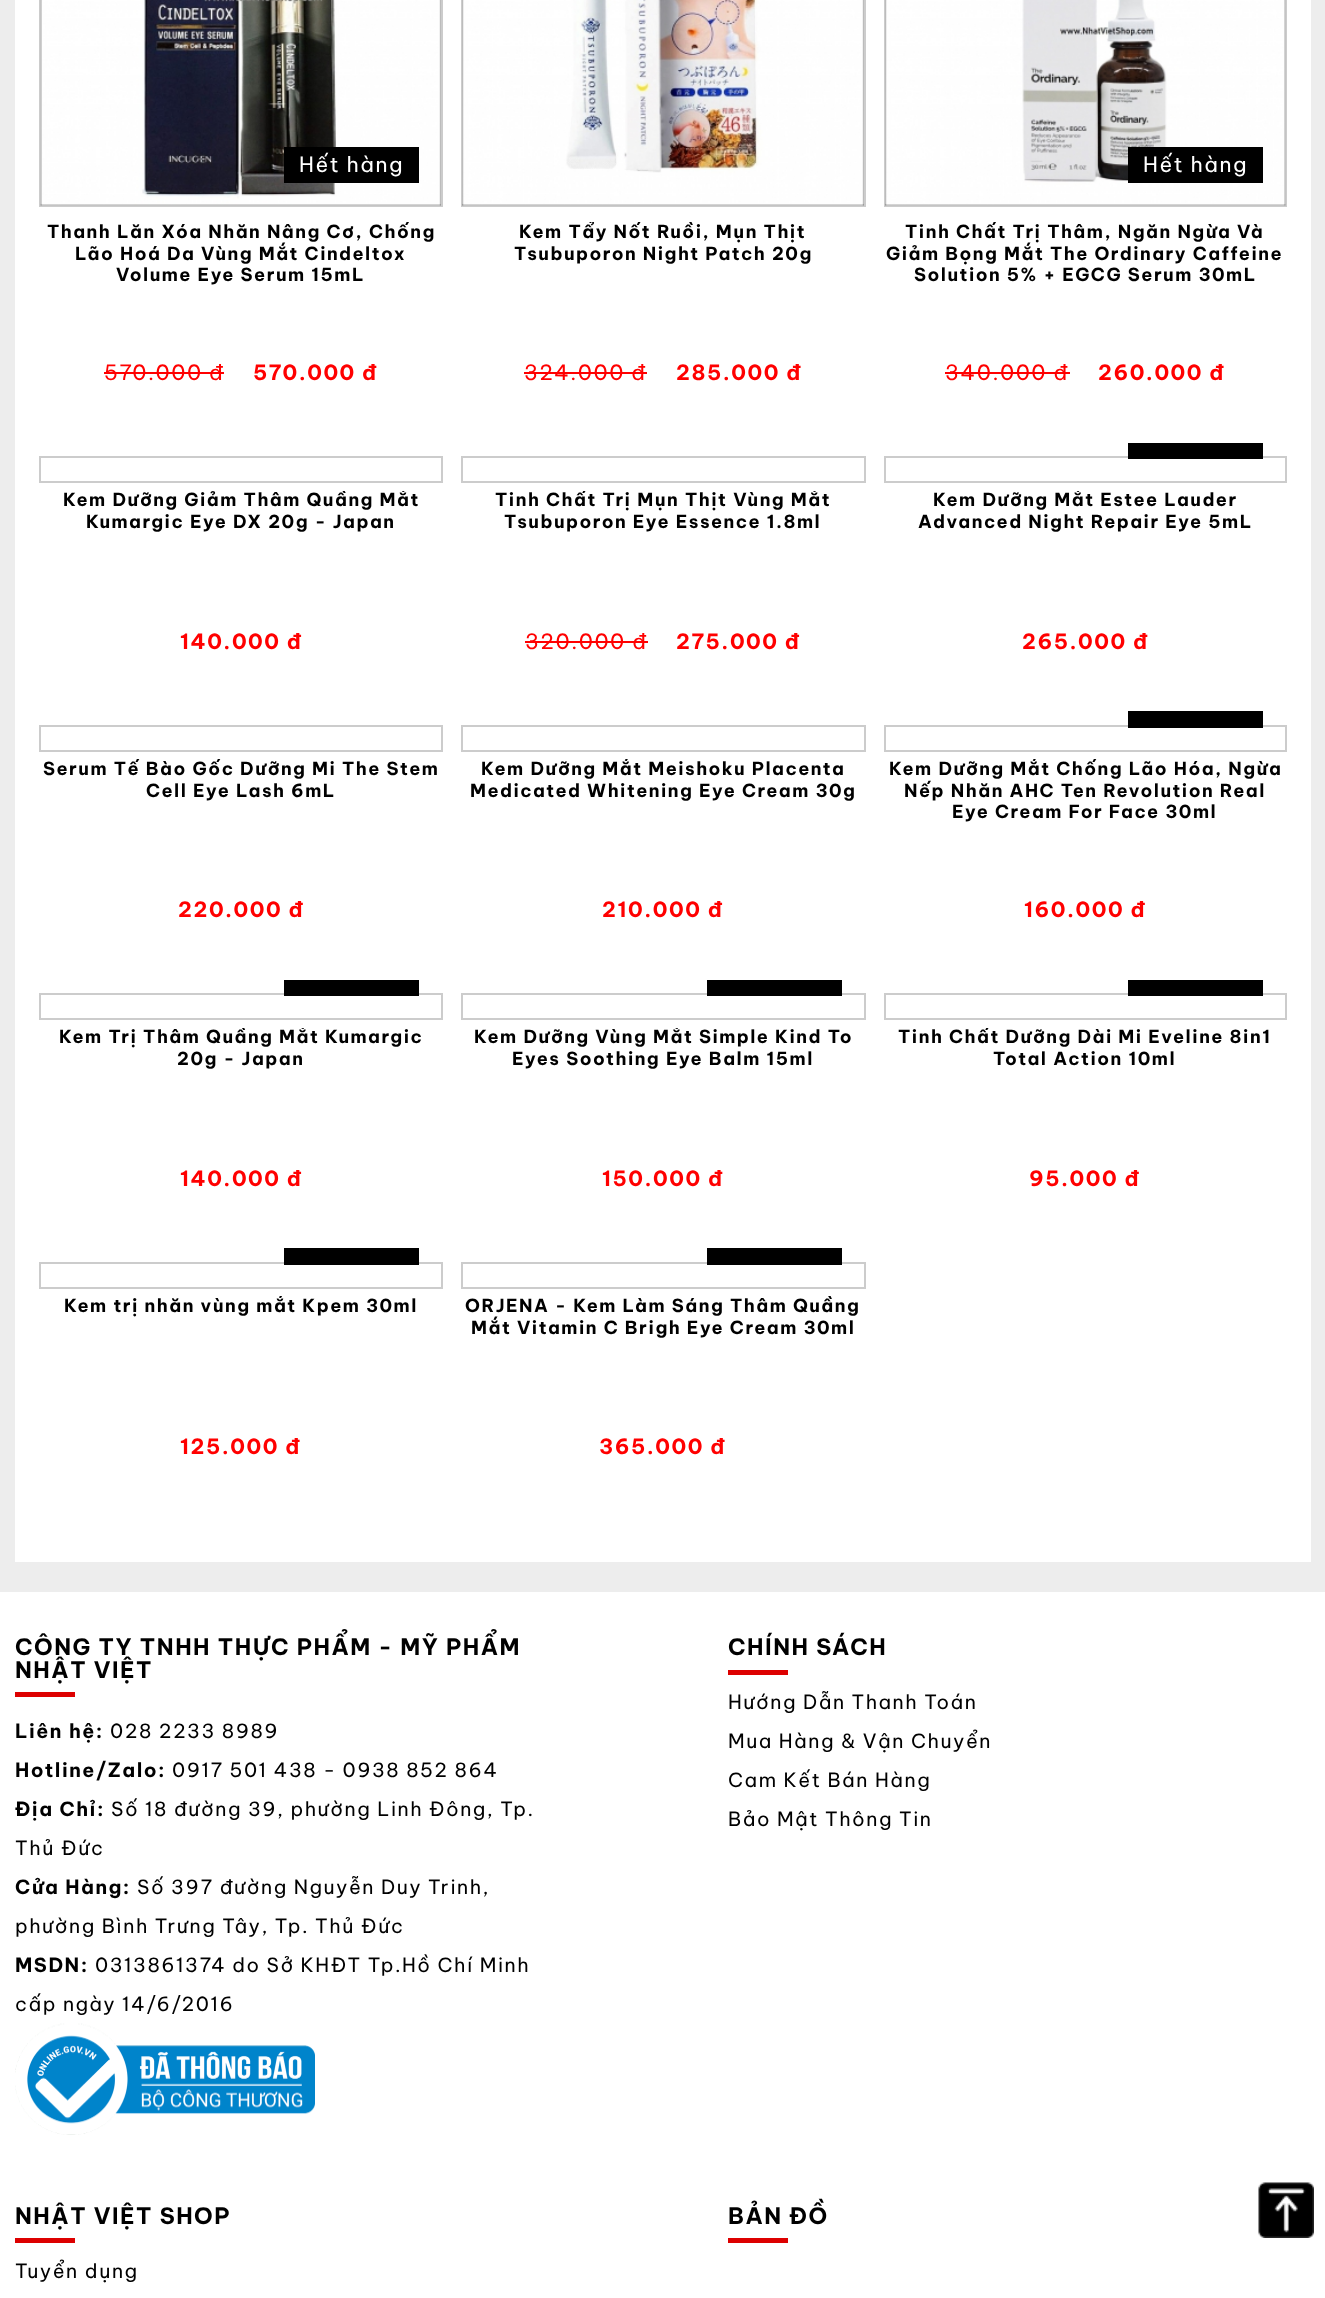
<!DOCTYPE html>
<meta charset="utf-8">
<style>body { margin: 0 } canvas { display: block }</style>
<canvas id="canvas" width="1325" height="2298"></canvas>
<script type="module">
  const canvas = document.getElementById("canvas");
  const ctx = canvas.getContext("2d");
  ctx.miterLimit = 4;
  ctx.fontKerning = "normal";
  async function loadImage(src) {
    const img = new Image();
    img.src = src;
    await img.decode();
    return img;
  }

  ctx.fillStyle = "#ededed";
  ctx.fillRect(0, 0, 1325, 2298);
  ctx.fillStyle = "#ffffff";
  ctx.fillRect(15, 0, 1296, 1562);
  ctx.strokeStyle = "#cccccc";
  ctx.lineWidth = 2;
  ctx.strokeRect(40, -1, 402, 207);
  ctx.drawImage(await loadImage("img1.png"), 40, 0, 401, 206);
  ctx.fillStyle = "#000000";
  ctx.fillRect(284, 147, 135, 36);
  ctx.letterSpacing = "1.5px";
  ctx.font = "21px Be Vietnam Pro";
  ctx.fillStyle = "#ffffff";
  ctx.fillText("Hết hàng", 299, 172);
  ctx.save();
  ctx.beginPath();
  ctx.rect(39, 222, 404, 120);
  ctx.clip();
  ctx.font = "bold 18px Be Vietnam Pro";
  ctx.fillStyle = "#000000";
  ctx.fillText("Thanh Lăn Xóa Nhăn Nâng Cơ, Chống", 47, 238);
  ctx.restore();
  ctx.font = "bold 18px Be Vietnam Pro";
  ctx.fillStyle = "#000000";
  ctx.fillText("Lão Hoá Da Vùng Mắt Cindeltox", 75, 260);
  ctx.fillText("Volume Eye Serum 15mL", 116, 281);
  ctx.font = "21px Be Vietnam Pro";
  ctx.fillStyle = "#ff0000";
  ctx.fillText("570.000 đ", 104, 380);
  ctx.fillRect(104, 372, 120, 2);
  ctx.font = "bold 21px Be Vietnam Pro";
  ctx.fillText("570.000 đ", 253, 380);
  ctx.strokeRect(462, -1, 403, 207);
  ctx.drawImage(await loadImage("img2.png"), 462, 0, 402, 206);
  ctx.save();
  ctx.beginPath();
  ctx.rect(461, 222, 405, 120);
  ctx.clip();
  ctx.font = "bold 18px Be Vietnam Pro";
  ctx.fillStyle = "#000000";
  ctx.fillText("Kem Tẩy Nốt Ruồi, Mụn Thịt", 519, 238);
  ctx.restore();
  ctx.font = "bold 18px Be Vietnam Pro";
  ctx.fillStyle = "#000000";
  ctx.fillText("Tsubuporon Night Patch 20g", 514, 260);
  ctx.font = "21px Be Vietnam Pro";
  ctx.fillStyle = "#ff0000";
  ctx.fillText("324.000 đ", 524, 380);
  ctx.fillRect(524, 372, 123, 2);
  ctx.font = "bold 21px Be Vietnam Pro";
  ctx.fillText("285.000 đ", 676, 380);
  ctx.strokeRect(885, -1, 401, 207);
  ctx.drawImage(await loadImage("img3.png"), 885, 0, 401, 206);
  ctx.fillStyle = "#000000";
  ctx.fillRect(1128, 147, 135, 36);
  ctx.font = "21px Be Vietnam Pro";
  ctx.fillStyle = "#ffffff";
  ctx.fillText("Hết hàng", 1143, 172);
  ctx.save();
  ctx.beginPath();
  ctx.rect(884, 222, 403, 120);
  ctx.clip();
  ctx.font = "bold 18px Be Vietnam Pro";
  ctx.fillStyle = "#000000";
  ctx.fillText("Tinh Chất Trị Thâm, Ngăn Ngừa Và", 905, 238);
  ctx.restore();
  ctx.font = "bold 18px Be Vietnam Pro";
  ctx.fillStyle = "#000000";
  ctx.fillText("Giảm Bọng Mắt The Ordinary Caffeine", 886, 260);
  ctx.fillText("Solution 5% + EGCG Serum 30mL", 914, 281);
  ctx.font = "21px Be Vietnam Pro";
  ctx.fillStyle = "#ff0000";
  ctx.fillText("340.000 đ", 945, 380);
  ctx.fillRect(945, 372, 125, 2);
  ctx.font = "bold 21px Be Vietnam Pro";
  ctx.fillText("260.000 đ", 1098, 380);
  ctx.strokeRect(40, 457, 402, 25);
  ctx.save();
  ctx.beginPath();
  ctx.rect(39, 491, 404, 120);
  ctx.clip();
  ctx.font = "bold 18px Be Vietnam Pro";
  ctx.fillStyle = "#000000";
  ctx.fillText("Kem Dưỡng Giảm Thâm Quầng Mắt", 63, 506);
  ctx.restore();
  ctx.font = "bold 18px Be Vietnam Pro";
  ctx.fillStyle = "#000000";
  ctx.fillText("Kumargic Eye DX 20g - Japan", 86, 528);
  ctx.font = "bold 21px Be Vietnam Pro";
  ctx.fillStyle = "#ff0000";
  ctx.fillText("140.000 đ", 180, 649);
  ctx.strokeRect(462, 457, 403, 25);
  ctx.save();
  ctx.beginPath();
  ctx.rect(461, 491, 405, 120);
  ctx.clip();
  ctx.font = "bold 18px Be Vietnam Pro";
  ctx.fillStyle = "#000000";
  ctx.fillText("Tinh Chất Trị Mụn Thịt Vùng Mắt", 495, 506);
  ctx.restore();
  ctx.font = "bold 18px Be Vietnam Pro";
  ctx.fillStyle = "#000000";
  ctx.fillText("Tsubuporon Eye Essence 1.8ml", 504, 528);
  ctx.font = "21px Be Vietnam Pro";
  ctx.fillStyle = "#ff0000";
  ctx.fillText("320.000 đ", 525, 649);
  ctx.fillRect(525, 641, 123, 2);
  ctx.font = "bold 21px Be Vietnam Pro";
  ctx.fillText("275.000 đ", 676, 649);
  ctx.strokeRect(885, 457, 401, 25);
  ctx.fillStyle = "#000000";
  ctx.fillRect(1128, 443, 135, 16);
  ctx.save();
  ctx.beginPath();
  ctx.rect(884, 491, 403, 120);
  ctx.clip();
  ctx.font = "bold 18px Be Vietnam Pro";
  ctx.fillText("Kem Dưỡng Mắt Estee Lauder", 933, 506);
  ctx.restore();
  ctx.font = "bold 18px Be Vietnam Pro";
  ctx.fillText("Advanced Night Repair Eye 5mL", 918, 528);
  ctx.font = "bold 21px Be Vietnam Pro";
  ctx.fillStyle = "#ff0000";
  ctx.fillText("265.000 đ", 1022, 649);
  ctx.strokeRect(40, 726, 402, 25);
  ctx.save();
  ctx.beginPath();
  ctx.rect(39, 759, 404, 120);
  ctx.clip();
  ctx.font = "bold 18px Be Vietnam Pro";
  ctx.fillStyle = "#000000";
  ctx.fillText("Serum Tế Bào Gốc Dưỡng Mi The Stem", 43, 775);
  ctx.restore();
  ctx.font = "bold 18px Be Vietnam Pro";
  ctx.fillStyle = "#000000";
  ctx.fillText("Cell Eye Lash 6mL", 146, 797);
  ctx.font = "bold 21px Be Vietnam Pro";
  ctx.fillStyle = "#ff0000";
  ctx.fillText("220.000 đ", 178, 917);
  ctx.strokeRect(462, 726, 403, 25);
  ctx.save();
  ctx.beginPath();
  ctx.rect(461, 759, 405, 120);
  ctx.clip();
  ctx.font = "bold 18px Be Vietnam Pro";
  ctx.fillStyle = "#000000";
  ctx.fillText("Kem Dưỡng Mắt Meishoku Placenta", 481, 775);
  ctx.restore();
  ctx.font = "bold 18px Be Vietnam Pro";
  ctx.fillStyle = "#000000";
  ctx.fillText("Medicated Whitening Eye Cream 30g", 470, 797);
  ctx.font = "bold 21px Be Vietnam Pro";
  ctx.fillStyle = "#ff0000";
  ctx.fillText("210.000 đ", 602, 917);
  ctx.strokeRect(885, 726, 401, 25);
  ctx.fillStyle = "#000000";
  ctx.fillRect(1128, 711, 135, 17);
  ctx.save();
  ctx.beginPath();
  ctx.rect(884, 759, 403, 120);
  ctx.clip();
  ctx.font = "bold 18px Be Vietnam Pro";
  ctx.fillText("Kem Dưỡng Mắt Chống Lão Hóa, Ngừa", 889, 775);
  ctx.restore();
  ctx.font = "bold 18px Be Vietnam Pro";
  ctx.fillText("Nếp Nhăn AHC Ten Revolution Real", 904, 797);
  ctx.fillText("Eye Cream For Face 30ml", 952, 818);
  ctx.font = "bold 21px Be Vietnam Pro";
  ctx.fillStyle = "#ff0000";
  ctx.fillText("160.000 đ", 1024, 917);
  ctx.strokeRect(40, 994, 402, 25);
  ctx.fillStyle = "#000000";
  ctx.fillRect(284, 980, 135, 16);
  ctx.save();
  ctx.beginPath();
  ctx.rect(39, 1028, 404, 120);
  ctx.clip();
  ctx.font = "bold 18px Be Vietnam Pro";
  ctx.fillText("Kem Trị Thâm Quầng Mắt Kumargic", 59, 1043);
  ctx.restore();
  ctx.font = "bold 18px Be Vietnam Pro";
  ctx.fillText("20g - Japan", 177, 1065);
  ctx.font = "bold 21px Be Vietnam Pro";
  ctx.fillStyle = "#ff0000";
  ctx.fillText("140.000 đ", 180, 1186);
  ctx.strokeRect(462, 994, 403, 25);
  ctx.fillStyle = "#000000";
  ctx.fillRect(707, 980, 135, 16);
  ctx.save();
  ctx.beginPath();
  ctx.rect(461, 1028, 405, 120);
  ctx.clip();
  ctx.font = "bold 18px Be Vietnam Pro";
  ctx.fillText("Kem Dưỡng Vùng Mắt Simple Kind To", 474, 1043);
  ctx.restore();
  ctx.font = "bold 18px Be Vietnam Pro";
  ctx.fillText("Eyes Soothing Eye Balm 15ml", 512, 1065);
  ctx.font = "bold 21px Be Vietnam Pro";
  ctx.fillStyle = "#ff0000";
  ctx.fillText("150.000 đ", 602, 1186);
  ctx.strokeRect(885, 994, 401, 25);
  ctx.fillStyle = "#000000";
  ctx.fillRect(1128, 980, 135, 16);
  ctx.save();
  ctx.beginPath();
  ctx.rect(884, 1028, 403, 120);
  ctx.clip();
  ctx.font = "bold 18px Be Vietnam Pro";
  ctx.fillText("Tinh Chất Dưỡng Dài Mi Eveline 8in1", 898, 1043);
  ctx.restore();
  ctx.font = "bold 18px Be Vietnam Pro";
  ctx.fillText("Total Action 10ml", 993, 1065);
  ctx.font = "bold 21px Be Vietnam Pro";
  ctx.fillStyle = "#ff0000";
  ctx.fillText("95.000 đ", 1029, 1186);
  ctx.strokeRect(40, 1263, 402, 25);
  ctx.fillStyle = "#000000";
  ctx.fillRect(284, 1248, 135, 17);
  ctx.save();
  ctx.beginPath();
  ctx.rect(39, 1296, 404, 120);
  ctx.clip();
  ctx.font = "bold 18px Be Vietnam Pro";
  ctx.fillText("Kem trị nhăn vùng mắt Kpem 30ml", 64, 1312);
  ctx.restore();
  ctx.fillStyle = "#ff0000";
  ctx.fillText("125.000 đ", 180, 1454);
  ctx.strokeRect(462, 1263, 403, 25);
  ctx.fillStyle = "#000000";
  ctx.fillRect(707, 1248, 135, 17);
  ctx.save();
  ctx.beginPath();
  ctx.rect(461, 1296, 405, 120);
  ctx.clip();
  ctx.font = "bold 18px Be Vietnam Pro";
  ctx.fillText("ORJENA - Kem Làm Sáng Thâm Quầng", 465, 1312);
  ctx.restore();
  ctx.font = "bold 18px Be Vietnam Pro";
  ctx.fillText("Mắt Vitamin C Brigh Eye Cream 30ml", 471, 1334);
  ctx.font = "bold 21px Be Vietnam Pro";
  ctx.fillStyle = "#ff0000";
  ctx.fillText("365.000 đ", 599, 1454);
  ctx.fillStyle = "#ffffff";
  ctx.fillRect(0, 1592, 1325, 706);
  ctx.font = "bold 22.5px Be Vietnam Pro";
  ctx.fillStyle = "#000000";
  ctx.fillText("CÔNG TY TNHH THỰC PHẨM - MỸ PHẨM", 15, 1655);
  ctx.fillText("NHẬT VIỆT", 15, 1678);
  ctx.fillStyle = "#dd0000";
  ctx.fillRect(15, 1692, 60, 5);
  ctx.font = "bold 19.5px Be Vietnam Pro";
  ctx.fillStyle = "#000000";
  ctx.fillText("Liên hệ:", 15, 1738);
  ctx.font = "19.5px Be Vietnam Pro";
  ctx.fillText("028 2233 8989", 110, 1738);
  ctx.font = "bold 19.5px Be Vietnam Pro";
  ctx.fillText("Hotline/Zalo:", 15, 1777);
  ctx.font = "19.5px Be Vietnam Pro";
  ctx.fillText("0917 501 438 - 0938 852 864", 172, 1777);
  ctx.font = "bold 19.5px Be Vietnam Pro";
  ctx.fillText("Địa Chỉ:", 15, 1816);
  ctx.font = "19.5px Be Vietnam Pro";
  ctx.fillText("Số 18 đường 39, phường Linh Đông, Tp.", 111, 1816);
  ctx.fillText("Thủ Đức", 15, 1855);
  ctx.font = "bold 19.5px Be Vietnam Pro";
  ctx.fillText("Cửa Hàng:", 15, 1894);
  ctx.font = "19.5px Be Vietnam Pro";
  ctx.fillText("Số 397 đường Nguyễn Duy Trinh,", 137, 1894);
  ctx.fillText("phường Bình Trưng Tây, Tp. Thủ Đức", 15, 1933);
  ctx.font = "bold 19.5px Be Vietnam Pro";
  ctx.fillText("MSDN:", 15, 1972);
  ctx.font = "19.5px Be Vietnam Pro";
  ctx.fillText("0313861374 do Sở KHĐT Tp.Hồ Chí Minh", 95, 1972);
  ctx.fillText("cấp ngày 14/6/2016", 15, 2011);
  ctx.drawImage(await loadImage("img4.png"), 15, 2023, 300, 112);
  ctx.font = "bold 22.5px Be Vietnam Pro";
  ctx.fillText("CHÍNH SÁCH", 728, 1655);
  ctx.fillStyle = "#dd0000";
  ctx.fillRect(728, 1670, 60, 5);
  ctx.font = "19.5px Be Vietnam Pro";
  ctx.fillStyle = "#000000";
  ctx.fillText("Hướng Dẫn Thanh Toán", 728, 1709);
  ctx.fillText("Mua Hàng & Vận Chuyển", 728, 1748);
  ctx.fillText("Cam Kết Bán Hàng", 728, 1787);
  ctx.fillText("Bảo Mật Thông Tin", 728, 1826);
  ctx.font = "bold 22.5px Be Vietnam Pro";
  ctx.fillText("NHẬT VIỆT SHOP", 15, 2224);
  ctx.fillStyle = "#dd0000";
  ctx.fillRect(15, 2238, 60, 5);
  ctx.font = "19.5px Be Vietnam Pro";
  ctx.fillStyle = "#000000";
  ctx.fillText("Tuyển dụng", 15, 2278);
  ctx.font = "bold 22.5px Be Vietnam Pro";
  ctx.fillText("BẢN ĐỒ", 728, 2224);
  ctx.fillStyle = "#dd0000";
  ctx.fillRect(728, 2238, 60, 5);
  ctx.drawImage(await loadImage("img5.png"), 1258, 2182, 56, 56);
</script>
